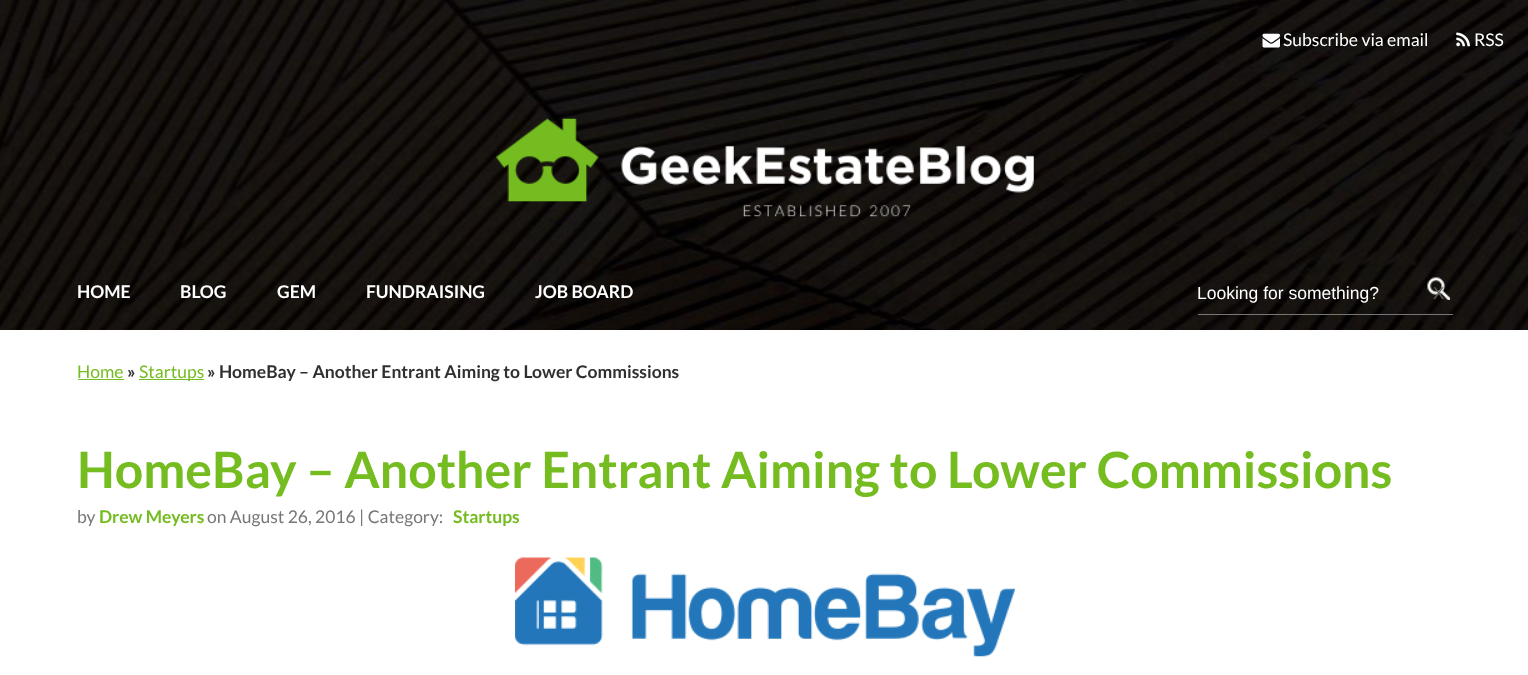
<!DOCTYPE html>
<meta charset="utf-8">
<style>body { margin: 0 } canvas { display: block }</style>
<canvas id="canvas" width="1528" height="675"></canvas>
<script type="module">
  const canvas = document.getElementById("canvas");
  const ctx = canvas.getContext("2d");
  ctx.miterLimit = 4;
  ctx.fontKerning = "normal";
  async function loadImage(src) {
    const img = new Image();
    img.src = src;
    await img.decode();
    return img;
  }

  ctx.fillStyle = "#ffffff";
  ctx.fillRect(0, 0, 1528, 675);
  ctx.drawImage(await loadImage("img1.png"), 0, 0, 1528, 330);
  ctx.drawImage(await loadImage("img2.png"), 1262, 33, 18, 15);
  ctx.font = "17.5px Lato";
  ctx.fillText("Subscribe via email", 1283, 46);
  ctx.drawImage(await loadImage("img3.png"), 1456, 32, 14, 15);
  ctx.fillText("RSS", 1474, 46);
  ctx.drawImage(await loadImage("img4.png"), 496, 118, 538, 99);
  ctx.font = "bold 17.5px Lato";
  ctx.fillText("HOME", 77, 298);
  ctx.fillText("BLOG", 180, 298);
  ctx.fillText("GEM", 277, 298);
  ctx.fillText("FUNDRAISING", 366, 298);
  ctx.fillText("JOB BOARD", 535, 298);
  ctx.fillStyle = "#777777";
  ctx.fillRect(1198, 314, 255, 1);
  ctx.font = "17.5px Liberation Sans";
  ctx.fillStyle = "#ffffff";
  ctx.fillText("Looking for something?", 1197, 299);
  ctx.drawImage(await loadImage("img5.png"), 1427, 277, 23, 23);
  ctx.font = "17px Liberation Sans";
  ctx.fillStyle = "#615f5c";
  ctx.fillText("X", 1433, 299);
  ctx.font = "17.5px Lato";
  ctx.fillStyle = "#74bc1f";
  ctx.fillText("Home", 77, 378);
  ctx.fillRect(78, 379, 46, 1);
  ctx.font = "bold 17.5px Lato";
  ctx.fillStyle = "#303030";
  ctx.fillText("»", 127, 378);
  ctx.fillStyle = "#74bc1f";
  ctx.fillRect(139, 379, 65, 1);
  ctx.font = "17.5px Lato";
  ctx.fillText("Startups", 139, 378);
  ctx.font = "bold 17.5px Lato";
  ctx.fillStyle = "#303030";
  ctx.fillText("» HomeBay – Another Entrant Aiming to Lower Commissions", 207, 378);
  ctx.font = "bold 50px Lato";
  ctx.fillStyle = "#74bc1f";
  ctx.fillText("HomeBay – Another Entrant Aiming to Lower Commissions", 77, 488);
  ctx.font = "17.5px Lato";
  ctx.fillStyle = "#777777";
  ctx.fillText("by", 77, 523);
  ctx.font = "bold 17.5px Lato";
  ctx.fillStyle = "#74bc1f";
  ctx.fillText("Drew Meyers", 99, 523);
  ctx.font = "17.5px Lato";
  ctx.fillStyle = "#777777";
  ctx.fillText("on August 26, 2016 | Category:", 207, 523);
  ctx.font = "bold 17.5px Lato";
  ctx.fillStyle = "#74bc1f";
  ctx.fillText("Startups", 453, 523);
  ctx.drawImage(await loadImage("img6.png"), 515, 557, 500, 100);
</script>
